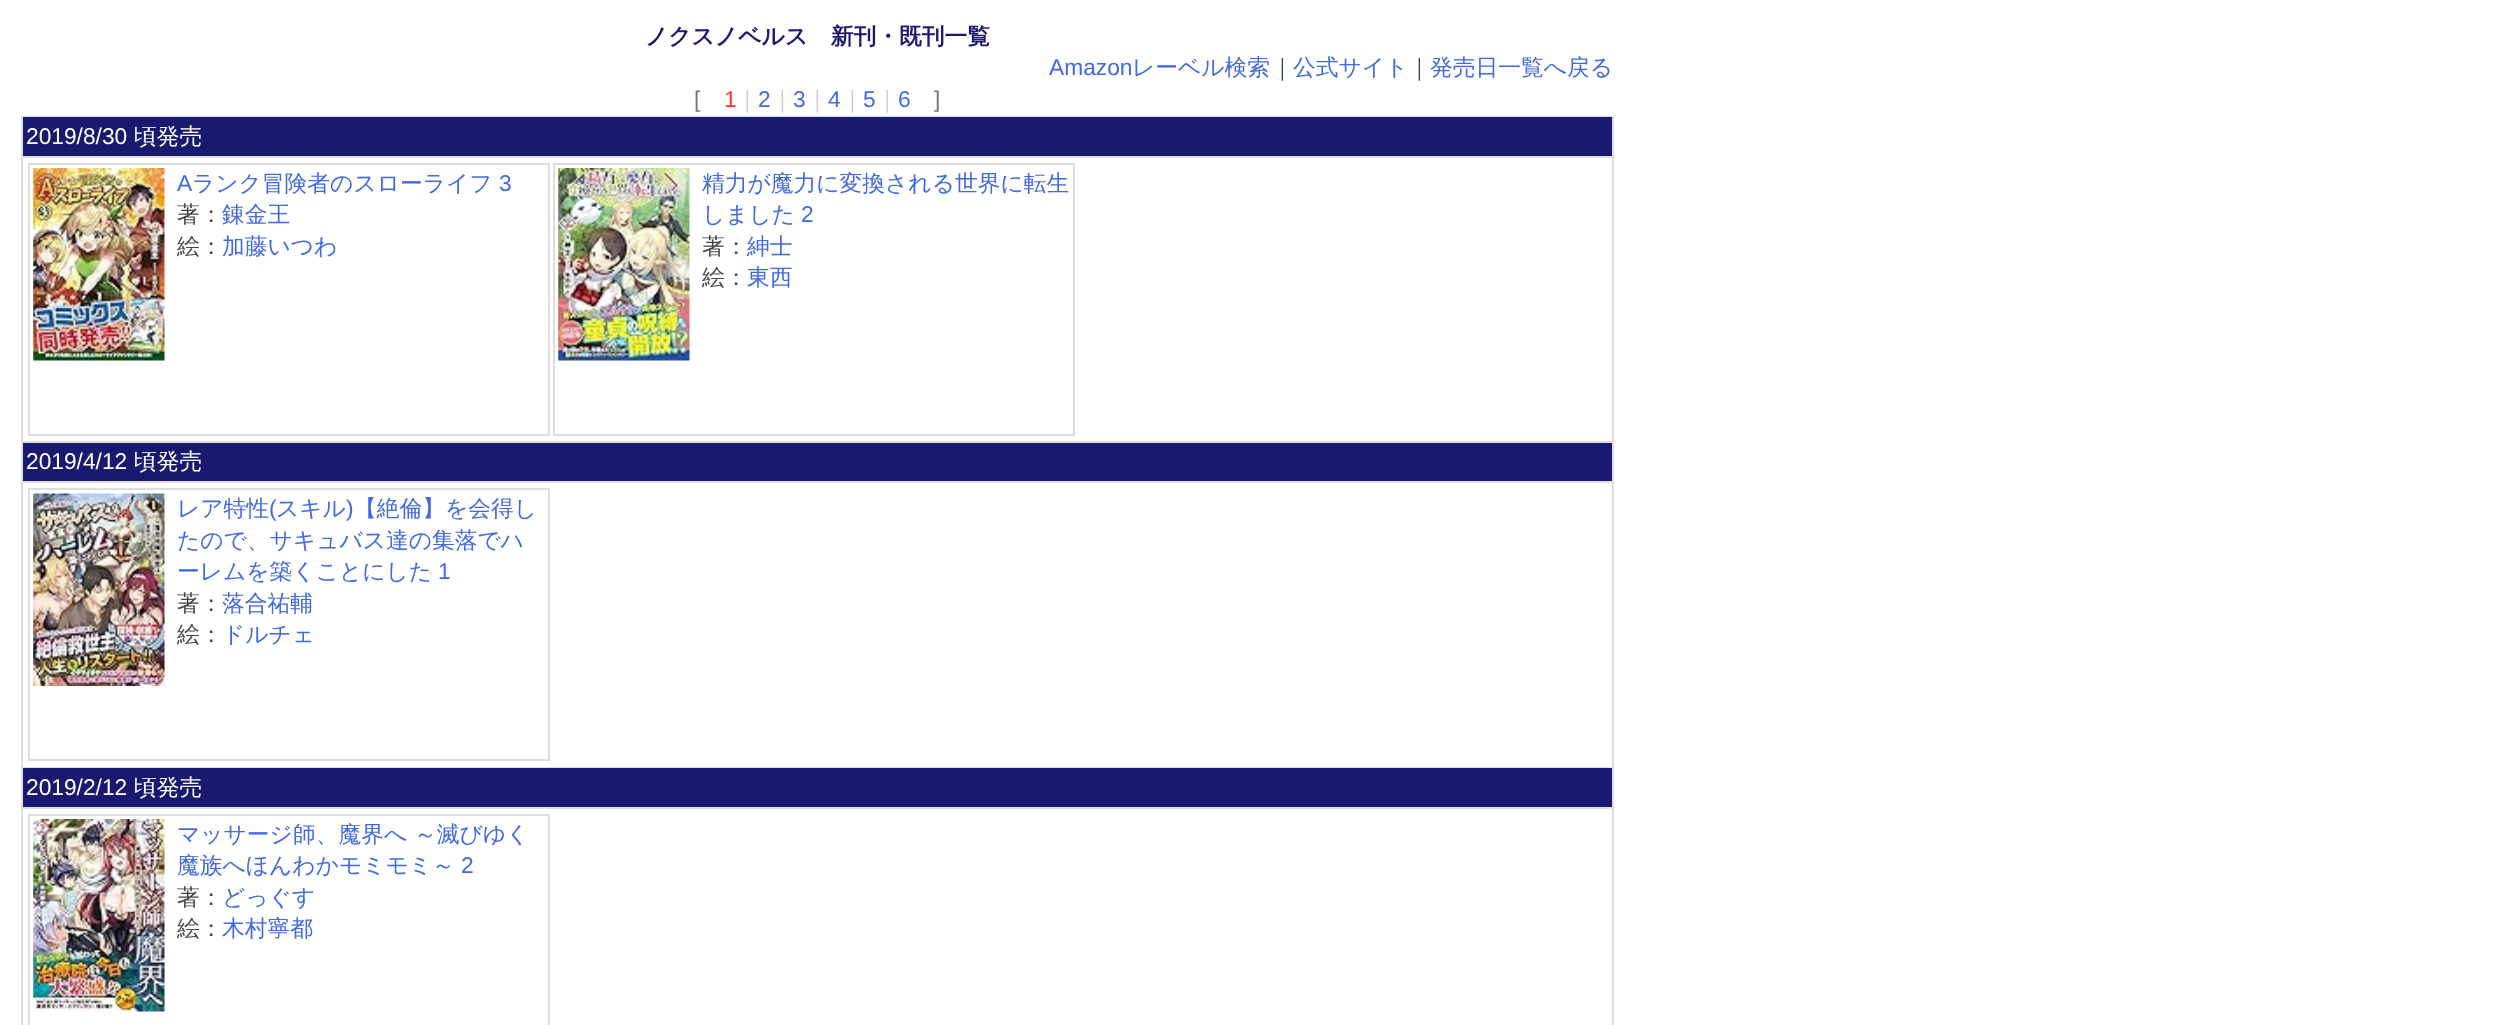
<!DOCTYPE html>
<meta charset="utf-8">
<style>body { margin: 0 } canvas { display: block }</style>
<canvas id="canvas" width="2496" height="1025"></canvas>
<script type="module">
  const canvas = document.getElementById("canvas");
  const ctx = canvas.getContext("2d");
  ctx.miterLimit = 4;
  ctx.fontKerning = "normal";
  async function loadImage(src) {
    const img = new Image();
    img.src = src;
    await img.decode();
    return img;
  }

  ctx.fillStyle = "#ffffff";
  ctx.fillRect(0, 0, 2496, 1025);
  ctx.font = "bold 22.75px WenQuanYi Zen Hei";
  ctx.fillStyle = "#191970";
  ctx.fillText("ノクスノベルス　新刊・既刊一覧", 645, 44);
  ctx.font = "22.75px Liberation Sans";
  ctx.fillStyle = "#4169e1";
  ctx.fillText("Amazon", 1049, 75);
  ctx.font = "500 22.75px WenQuanYi Zen Hei";
  ctx.fillText("レーベル検索", 1132, 75);
  ctx.fillStyle = "#444444";
  ctx.fillText("｜", 1271, 75);
  ctx.fillStyle = "#4169e1";
  ctx.fillText("公式サイト", 1293, 75);
  ctx.fillStyle = "#444444";
  ctx.fillText("｜", 1408, 75);
  ctx.fillStyle = "#4169e1";
  ctx.fillText("発売日一覧へ戻る", 1430, 75);
  ctx.font = "22.75px Liberation Sans";
  ctx.fillStyle = "#777777";
  ctx.fillText("[", 694, 107);
  ctx.fillStyle = "#ff3333";
  ctx.fillText("1", 724, 107);
  ctx.font = "500 22.75px WenQuanYi Zen Hei";
  ctx.fillStyle = "#cccccc";
  ctx.fillText("｜", 736, 107);
  ctx.font = "22.75px Liberation Sans";
  ctx.fillStyle = "#4169e1";
  ctx.fillText("2", 758, 107);
  ctx.font = "500 22.75px WenQuanYi Zen Hei";
  ctx.fillStyle = "#cccccc";
  ctx.fillText("｜", 771, 107);
  ctx.font = "22.75px Liberation Sans";
  ctx.fillStyle = "#4169e1";
  ctx.fillText("3", 793, 107);
  ctx.font = "500 22.75px WenQuanYi Zen Hei";
  ctx.fillStyle = "#cccccc";
  ctx.fillText("｜", 806, 107);
  ctx.font = "22.75px Liberation Sans";
  ctx.fillStyle = "#4169e1";
  ctx.fillText("4", 828, 107);
  ctx.font = "500 22.75px WenQuanYi Zen Hei";
  ctx.fillStyle = "#cccccc";
  ctx.fillText("｜", 841, 107);
  ctx.font = "22.75px Liberation Sans";
  ctx.fillStyle = "#4169e1";
  ctx.fillText("5", 863, 107);
  ctx.font = "500 22.75px WenQuanYi Zen Hei";
  ctx.fillStyle = "#cccccc";
  ctx.fillText("｜", 876, 107);
  ctx.font = "22.75px Liberation Sans";
  ctx.fillStyle = "#4169e1";
  ctx.fillText("6", 898, 107);
  ctx.fillStyle = "#777777";
  ctx.fillText("]", 934, 107);
  ctx.fillStyle = "#dddddd";
  ctx.fillRect(21, 116, 1593, 909);
  ctx.fillStyle = "#191970";
  ctx.fillRect(23, 117, 1589, 39);
  ctx.fillStyle = "#ffffff";
  ctx.fillText("2019/8/30", 26, 144);
  ctx.font = "500 22.75px WenQuanYi Zen Hei";
  ctx.fillText("頃発売", 134, 144);
  ctx.fillRect(23, 158, 1589, 283);
  ctx.strokeStyle = "#dddddd";
  ctx.lineWidth = 2;
  ctx.strokeRect(29, 164, 520, 271);
  ctx.drawImage(await loadImage("img1.png"), 33, 168, 132, 193);
  ctx.font = "22.75px Liberation Sans";
  ctx.fillStyle = "#4169e1";
  ctx.fillText("A", 177, 191);
  ctx.font = "500 22.75px WenQuanYi Zen Hei";
  ctx.fillText("ランク冒険者のスローライフ", 192, 191);
  ctx.font = "22.75px Liberation Sans";
  ctx.fillText("3", 499, 191);
  ctx.font = "500 22.75px WenQuanYi Zen Hei";
  ctx.fillStyle = "#444444";
  ctx.fillText("著：", 177, 222);
  ctx.fillStyle = "#4169e1";
  ctx.fillText("錬金王", 222, 222);
  ctx.fillStyle = "#444444";
  ctx.fillText("絵：", 177, 254);
  ctx.fillStyle = "#4169e1";
  ctx.fillText("加藤いつわ", 222, 254);
  ctx.strokeRect(554, 164, 520, 271);
  ctx.drawImage(await loadImage("img2.png"), 558, 168, 132, 193);
  ctx.fillText("精力が魔力に変換される世界に転生", 702, 191);
  ctx.fillText("しました", 702, 222);
  ctx.font = "22.75px Liberation Sans";
  ctx.fillText("2", 801, 222);
  ctx.font = "500 22.75px WenQuanYi Zen Hei";
  ctx.fillStyle = "#444444";
  ctx.fillText("著：", 702, 254);
  ctx.fillStyle = "#4169e1";
  ctx.fillText("紳士", 747, 254);
  ctx.fillStyle = "#444444";
  ctx.fillText("絵：", 702, 285);
  ctx.fillStyle = "#4169e1";
  ctx.fillText("東西", 747, 285);
  ctx.fillStyle = "#191970";
  ctx.fillRect(23, 443, 1589, 38);
  ctx.font = "22.75px Liberation Sans";
  ctx.fillStyle = "#ffffff";
  ctx.fillText("2019/4/12", 26, 469);
  ctx.font = "500 22.75px WenQuanYi Zen Hei";
  ctx.fillText("頃発売", 134, 469);
  ctx.fillRect(23, 483, 1589, 284);
  ctx.strokeRect(29, 489, 520, 271);
  ctx.drawImage(await loadImage("img3.png"), 33, 493, 132, 193);
  ctx.fillStyle = "#4169e1";
  ctx.fillText("レア特性", 177, 516);
  ctx.font = "22.75px Liberation Sans";
  ctx.fillText("(", 269, 516);
  ctx.font = "500 22.75px WenQuanYi Zen Hei";
  ctx.fillText("スキル", 276, 516);
  ctx.font = "22.75px Liberation Sans";
  ctx.fillText(")", 346, 516);
  ctx.font = "500 22.75px WenQuanYi Zen Hei";
  ctx.fillText("【絶倫】を会得し", 354, 516);
  ctx.fillText("たので、サキュバス達の集落でハ", 177, 548);
  ctx.fillText("ーレムを築くことにした", 177, 579);
  ctx.font = "22.75px Liberation Sans";
  ctx.fillText("1", 438, 579);
  ctx.font = "500 22.75px WenQuanYi Zen Hei";
  ctx.fillStyle = "#444444";
  ctx.fillText("著：", 177, 611);
  ctx.fillStyle = "#4169e1";
  ctx.fillText("落合祐輔", 222, 611);
  ctx.fillStyle = "#444444";
  ctx.fillText("絵：", 177, 642);
  ctx.fillStyle = "#4169e1";
  ctx.fillText("ドルチェ", 222, 642);
  ctx.fillStyle = "#191970";
  ctx.fillRect(23, 768, 1589, 39);
  ctx.font = "22.75px Liberation Sans";
  ctx.fillStyle = "#ffffff";
  ctx.fillText("2019/2/12", 26, 795);
  ctx.font = "500 22.75px WenQuanYi Zen Hei";
  ctx.fillText("頃発売", 134, 795);
  ctx.fillRect(23, 809, 1589, 216);
  ctx.strokeRect(29, 815, 520, 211);
  ctx.drawImage(await loadImage("img4.png"), 33, 819, 132, 193);
  ctx.fillStyle = "#4169e1";
  ctx.fillText("マッサージ師、魔界へ ～滅びゆく", 177, 842);
  ctx.fillText("魔族へほんわかモミモミ～", 177, 873);
  ctx.font = "22.75px Liberation Sans";
  ctx.fillText("2", 461, 873);
  ctx.font = "500 22.75px WenQuanYi Zen Hei";
  ctx.fillStyle = "#444444";
  ctx.fillText("著：", 177, 905);
  ctx.fillStyle = "#4169e1";
  ctx.fillText("どっぐす", 222, 905);
  ctx.fillStyle = "#444444";
  ctx.fillText("絵：", 177, 936);
  ctx.fillStyle = "#4169e1";
  ctx.fillText("木村寧都", 222, 936);
</script>
